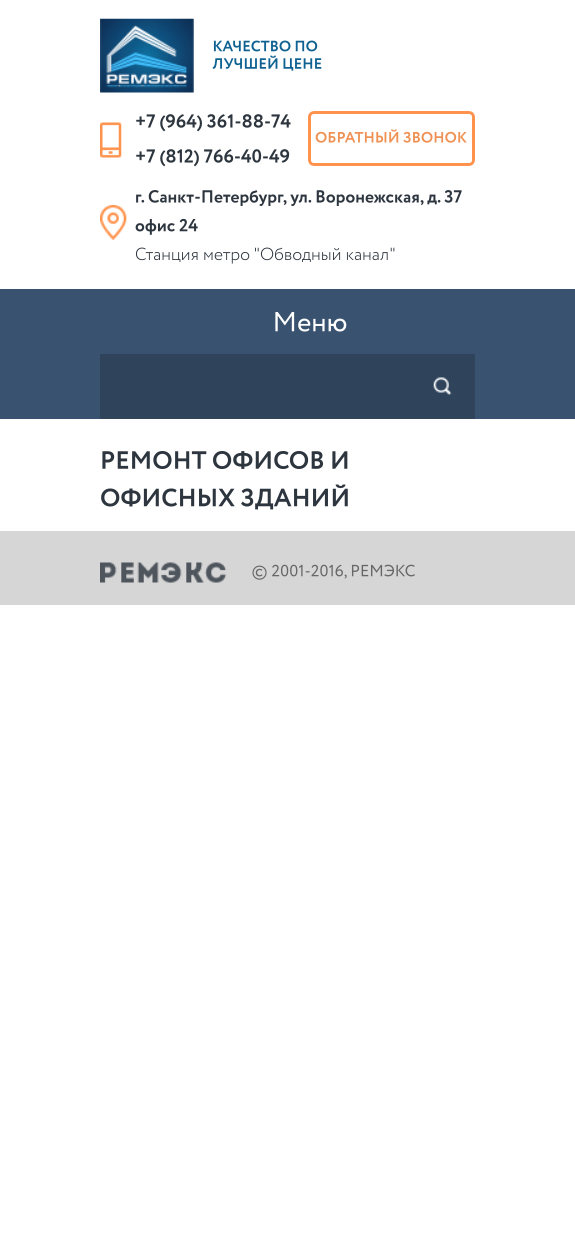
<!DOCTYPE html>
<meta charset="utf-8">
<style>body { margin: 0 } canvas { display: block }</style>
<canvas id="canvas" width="575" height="1237"></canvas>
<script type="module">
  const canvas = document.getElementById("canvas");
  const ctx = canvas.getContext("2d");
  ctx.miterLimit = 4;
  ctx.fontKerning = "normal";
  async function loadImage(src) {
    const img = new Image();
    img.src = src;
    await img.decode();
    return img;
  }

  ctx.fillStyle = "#ffffff";
  ctx.fillRect(0, 0, 575, 1237);
  ctx.drawImage(await loadImage("img1.png"), 100, 18, 94, 75);
  ctx.drawImage(await loadImage("img2.png"), 213, 40, 105, 12);
  ctx.drawImage(await loadImage("img3.png"), 212, 55, 110, 16);
  ctx.drawImage(await loadImage("img4.png"), 100, 122, 22, 36);
  ctx.drawImage(await loadImage("img5.png"), 136, 114, 155, 18);
  ctx.drawImage(await loadImage("img6.png"), 136, 149, 154, 18);
  ctx.beginPath();
  ctx.roundRect(309.5, 112.5, 164, 52, 4.5);
  ctx.strokeStyle = "#ff924c";
  ctx.lineWidth = 3;
  ctx.stroke();
  ctx.drawImage(await loadImage("img7.png"), 315, 129, 152, 14);
  ctx.drawImage(await loadImage("img8.png"), 100, 205, 27, 35);
  ctx.drawImage(await loadImage("img9.png"), 136, 190, 326, 16);
  ctx.drawImage(await loadImage("img10.png"), 135, 218, 63, 17);
  ctx.drawImage(await loadImage("img11.png"), 135, 247, 260, 17);
  ctx.fillStyle = "#39526f";
  ctx.fillRect(0, 289, 575, 130);
  ctx.drawImage(await loadImage("img12.png"), 275, 312, 72, 20);
  ctx.fillStyle = "#2f435b";
  ctx.fillRect(100, 354, 375, 65);
  ctx.drawImage(await loadImage("img13.png"), 433, 377, 19, 18);
  ctx.drawImage(await loadImage("img14.png"), 102, 451, 246, 18);
  ctx.drawImage(await loadImage("img15.png"), 101, 484, 247, 26);
  ctx.fillStyle = "#d6d6d6";
  ctx.fillRect(0, 531, 575, 74);
  ctx.drawImage(await loadImage("img16.png"), 100, 562, 127, 21);
  ctx.drawImage(await loadImage("img17.png"), 252, 564, 163, 16);
</script>
